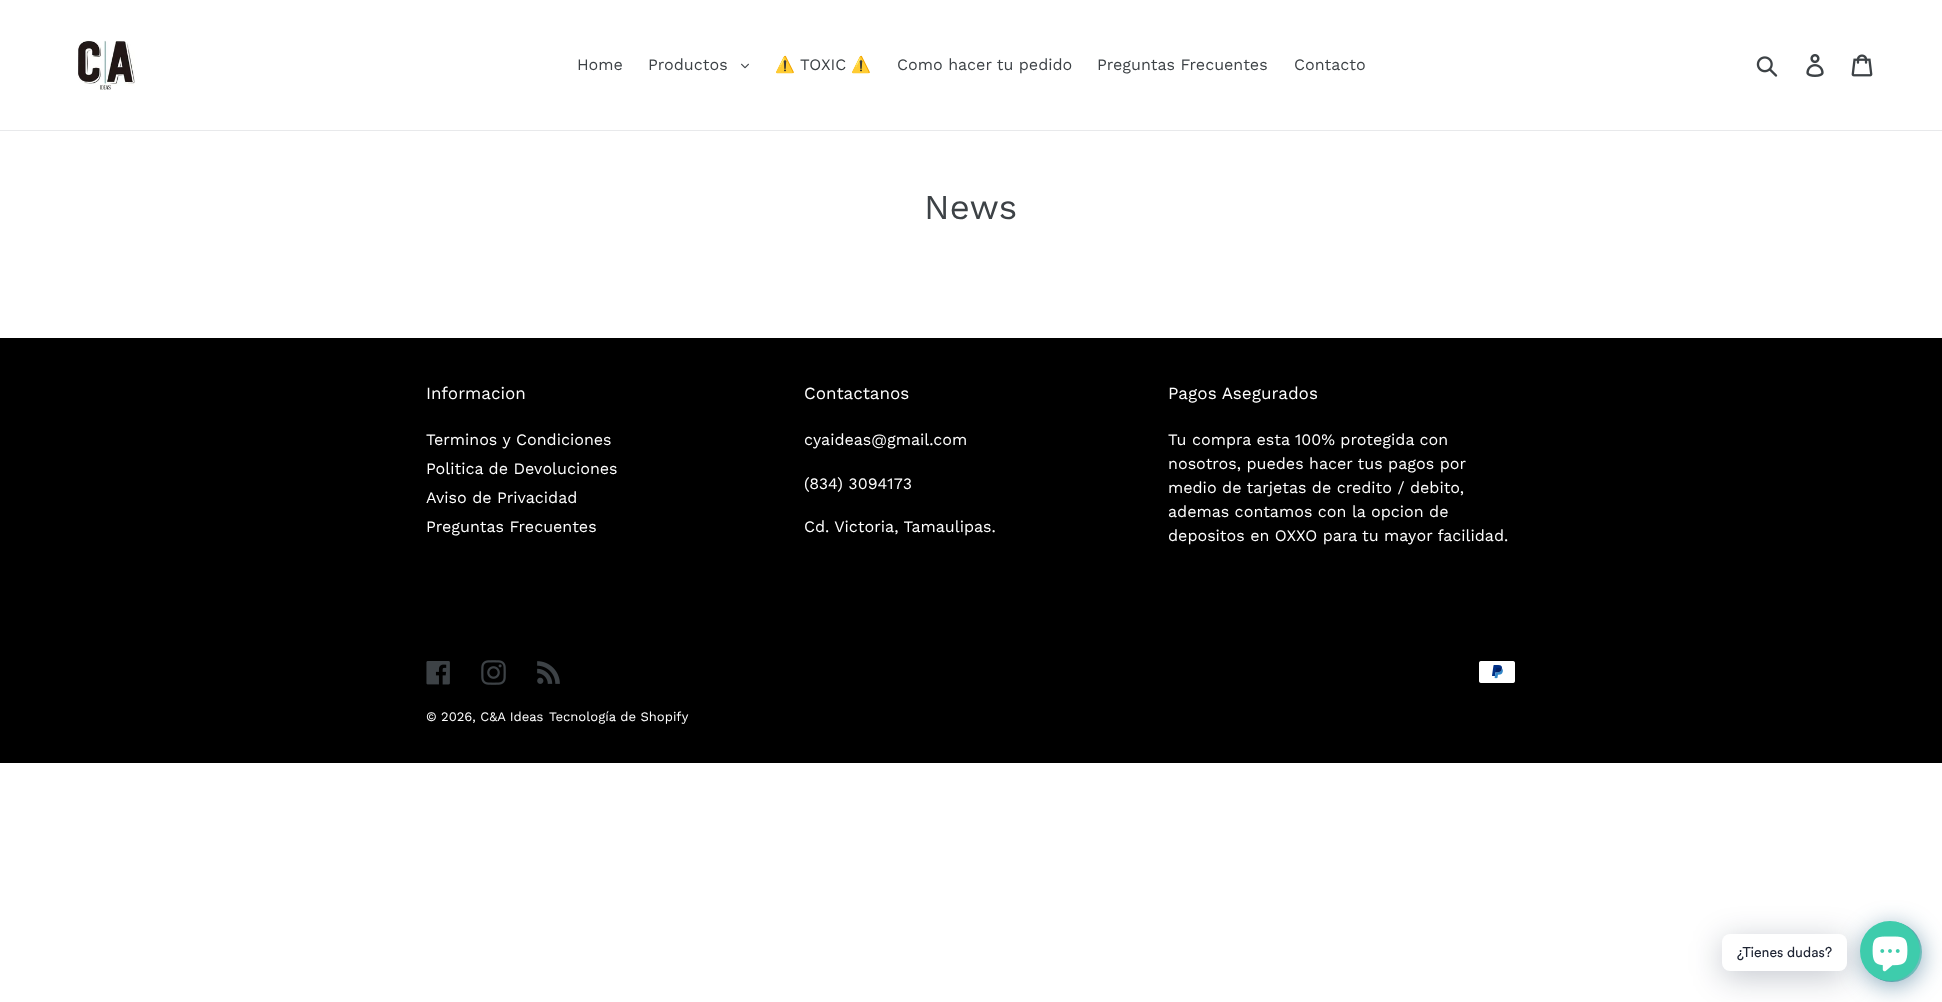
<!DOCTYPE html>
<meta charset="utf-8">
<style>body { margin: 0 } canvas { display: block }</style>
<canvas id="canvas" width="1942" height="1002"></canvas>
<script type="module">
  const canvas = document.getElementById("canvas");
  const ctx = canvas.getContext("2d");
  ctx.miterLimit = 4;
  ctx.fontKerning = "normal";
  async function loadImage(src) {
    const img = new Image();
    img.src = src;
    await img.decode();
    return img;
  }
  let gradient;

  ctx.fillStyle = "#ffffff";
  ctx.fillRect(0, 0, 1942, 1002);
  ctx.fillStyle = "#e8e9eb";
  ctx.fillRect(0, 130, 1942, 1);
  ctx.drawImage(await loadImage("img1.png"), 77, 40, 58, 50);
  ctx.font = "16px Work Sans";
  ctx.fillStyle = "#3d4246";
  ctx.fillText("Home", 577, 70);
  ctx.fillText("Productos", 648, 70);
  ctx.drawImage(await loadImage("img2.png"), 741, 63, 8, 6);
  ctx.font = "16px Noto Color Emoji";
  ctx.fillText("⚠️", 775, 70);
  ctx.font = "16px Work Sans";
  ctx.fillText("TOXIC", 800, 70);
  ctx.font = "16px Noto Color Emoji";
  ctx.fillText("⚠️", 851, 70);
  ctx.font = "16px Work Sans";
  ctx.fillText("Como hacer tu pedido", 897, 70);
  ctx.fillText("Preguntas Frecuentes", 1097, 70);
  ctx.fillText("Contacto", 1294, 70);
  ctx.drawImage(await loadImage("img3.png"), 1756, 56, 22, 21);
  ctx.drawImage(await loadImage("img4.png"), 1806, 54, 18, 23);
  ctx.drawImage(await loadImage("img5.png"), 1851, 54, 22, 23);
  ctx.font = "35px Work Sans";
  ctx.fillText("News", 924, 219);
  ctx.fillStyle = "#000000";
  ctx.fillRect(0, 338, 1942, 425);
  ctx.font = "17px Work Sans";
  ctx.fillStyle = "#ffffff";
  ctx.fillText("Informacion", 426, 399);
  ctx.font = "16px Work Sans";
  ctx.fillText("Terminos y Condiciones", 426, 445);
  ctx.fillText("Politica de Devoluciones", 426, 474);
  ctx.fillText("Aviso de Privacidad", 426, 503);
  ctx.fillText("Preguntas Frecuentes", 426, 532);
  ctx.font = "17px Work Sans";
  ctx.fillText("Contactanos", 804, 399);
  ctx.font = "16px Work Sans";
  ctx.fillText("cyaideas@gmail.com", 804, 445);
  ctx.fillText("(834) 3094173", 804, 489);
  ctx.fillText("Cd. Victoria, Tamaulipas.", 804, 532);
  ctx.font = "17px Work Sans";
  ctx.fillText("Pagos Asegurados", 1168, 399);
  ctx.font = "16px Work Sans";
  ctx.fillText("Tu compra esta 100% protegida con", 1168, 445);
  ctx.fillText("nosotros, puedes hacer tus pagos por", 1168, 469);
  ctx.fillText("medio de tarjetas de credito / debito,", 1168, 493);
  ctx.fillText("ademas contamos con la opcion de", 1168, 517);
  ctx.fillText("depositos en OXXO para tu mayor facilidad.", 1168, 541);
  ctx.drawImage(await loadImage("img6.png"), 426, 661, 24, 24);
  ctx.drawImage(await loadImage("img7.png"), 481, 660, 25, 25);
  ctx.drawImage(await loadImage("img8.png"), 537, 661, 23, 23);
  ctx.drawImage(await loadImage("img9.png"), 1479, 661, 36, 22);
  ctx.font = "13px Work Sans";
  ctx.fillText("© 2026, C&A Ideas", 426, 721);
  ctx.fillText("Tecnología de Shopify", 549, 721);
  ctx.fillStyle = "rgba(19, 84, 122, 0.5)";
  ctx.filter = "blur(12px)";
  ctx.beginPath();
  ctx.roundRect(1862, 926, 60, 60, 30);
  ctx.fill();
  ctx.filter = "none";
  gradient = ctx.createLinearGradient(1856, 935, 1928, 969);
  gradient.addColorStop(0, "#13547a");
  gradient.addColorStop(1, "#80d0c7");
  ctx.fillStyle = gradient;
  ctx.beginPath();
  ctx.arc(1892, 952, 30, 0, Math.PI * 2);
  ctx.fill();
  ctx.fillStyle = "rgba(0, 18, 46, 0.24)";
  ctx.filter = "blur(16px)";
  ctx.beginPath();
  ctx.roundRect(1722, 940, 125, 37, 8);
  ctx.fill();
  ctx.filter = "none";
  ctx.fillStyle = "#ffffff";
  ctx.beginPath();
  ctx.roundRect(1722, 934, 125, 37, 8);
  ctx.fill();
  ctx.font = "14px Circular";
  ctx.fillStyle = "#1e2433";
  ctx.fillText("¿Tienes dudas?", 1737, 957);
  ctx.fillStyle = "#3eccac";
  ctx.beginPath();
  ctx.arc(1890, 951, 30, 0, Math.PI * 2);
  ctx.fill();
  ctx.drawImage(await loadImage("img10.png"), 1872, 936, 36, 36);
</script>
